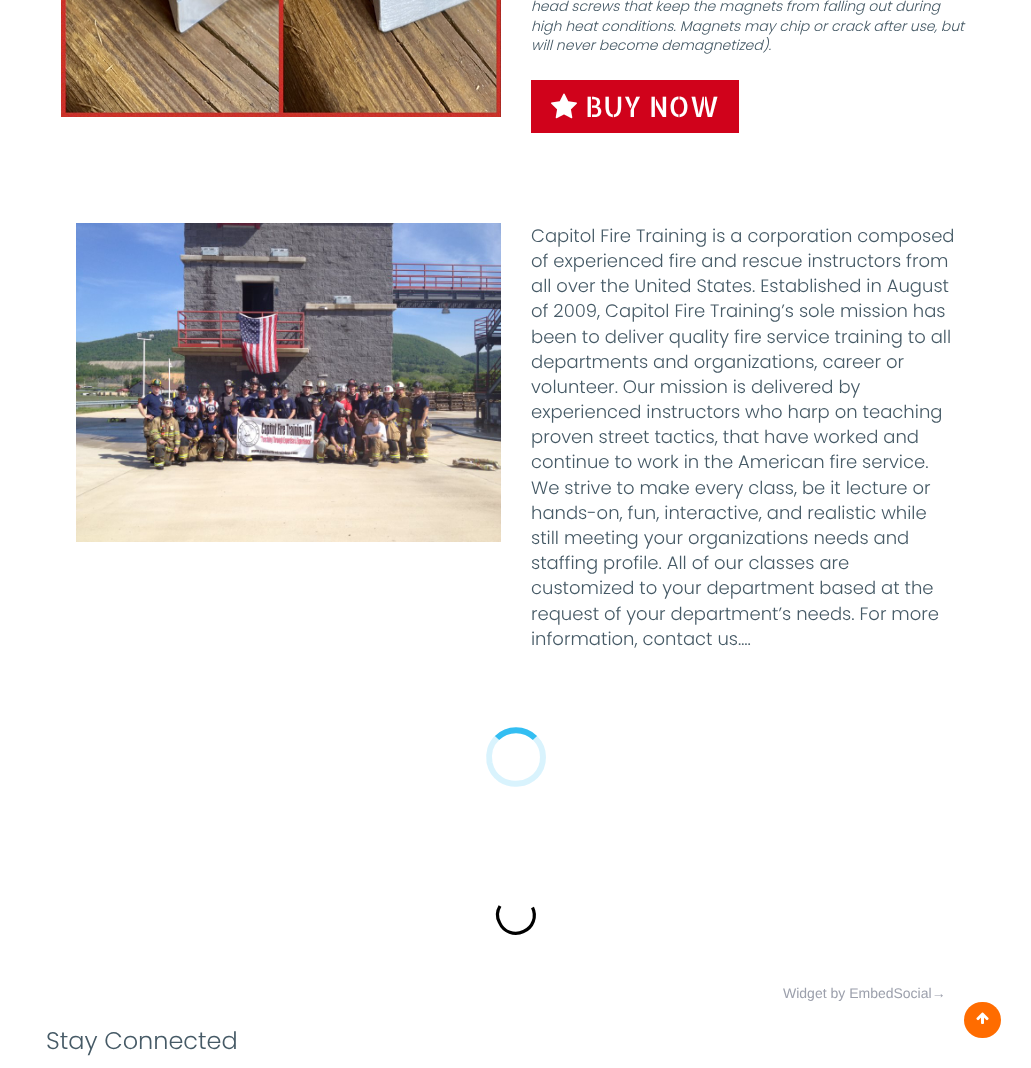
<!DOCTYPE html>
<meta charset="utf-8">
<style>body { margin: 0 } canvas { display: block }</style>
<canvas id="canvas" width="1031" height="1068"></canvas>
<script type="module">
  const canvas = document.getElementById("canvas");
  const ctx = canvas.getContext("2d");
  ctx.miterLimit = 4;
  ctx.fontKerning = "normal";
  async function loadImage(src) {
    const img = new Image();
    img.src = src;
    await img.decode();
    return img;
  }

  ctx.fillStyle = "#ffffff";
  ctx.fillRect(0, 0, 1031, 1068);
  ctx.drawImage(await loadImage("img1.png"), 61, 0, 440, 117);
  ctx.font = "italic 300 14px Poppins";
  ctx.fillStyle = "#465a66";
  ctx.fillText("head screws that keep the magnets from falling out during", 531, 11);
  ctx.fillText("high heat conditions. Magnets may chip or crack after use, but", 531, 31);
  ctx.fillText("will never become demagnetized).", 531, 50);
  ctx.fillStyle = "#d0021b";
  ctx.fillRect(531, 80, 208, 53);
  ctx.drawImage(await loadImage("img2.png"), 551, 93, 26, 26);
  ctx.font = "28px Allerta Stencil";
  ctx.fillStyle = "#ffffff";
  ctx.fillText("BUY NOW", 585, 117);
  ctx.drawImage(await loadImage("img3.png"), 76, 223, 425, 319);
  ctx.font = "300 18px Poppins";
  ctx.fillStyle = "#465a66";
  ctx.fillText("Capitol Fire Training is a corporation composed", 531, 242);
  ctx.fillText("of experienced fire and rescue instructors from", 531, 267);
  ctx.fillText("all over the United States. Established in August", 531, 292);
  ctx.fillText("of 2009, Capitol Fire Training’s sole mission has", 531, 317);
  ctx.fillText("been to deliver quality fire service training to all", 531, 343);
  ctx.fillText("departments and organizations, career or", 531, 368);
  ctx.fillText("volunteer. Our mission is delivered by", 531, 393);
  ctx.fillText("experienced instructors who harp on teaching", 531, 418);
  ctx.fillText("proven street tactics, that have worked and", 531, 443);
  ctx.fillText("continue to work in the American fire service.", 531, 468);
  ctx.fillText("We strive to make every class, be it lecture or", 531, 494);
  ctx.fillText("hands-on, fun, interactive, and realistic while", 531, 519);
  ctx.fillText("still meeting your organizations needs and", 531, 544);
  ctx.fillText("staffing profile. All of our classes are", 531, 569);
  ctx.fillText("customized to your department based at the", 531, 594);
  ctx.fillText("request of your department’s needs. For more", 531, 620);
  ctx.fillText("information, contact us….", 531, 645);
  ctx.beginPath();
  ctx.moveTo(497, 738);
  ctx.bezierCurveTo(507.5, 727.5, 524.5, 727.5, 535, 738);
  ctx.strokeStyle = "#33bef2";
  ctx.lineWidth = 6;
  ctx.stroke();
  ctx.beginPath();
  ctx.moveTo(535, 738);
  ctx.bezierCurveTo(540, 743, 543, 750, 543, 757);
  ctx.bezierCurveTo(543, 789, 496, 794, 489.5, 762.5);
  ctx.bezierCurveTo(488, 753.5, 490.5, 744, 497, 738);
  ctx.strokeStyle = "rgba(0, 174, 239, 0.15)";
  ctx.stroke();
  ctx.beginPath();
  ctx.moveTo(532.5, 907.5);
  ctx.bezierCurveTo(537, 916.5, 533, 927.5, 523.5, 931.5);
  ctx.bezierCurveTo(514.5, 936, 503.5, 932, 499.5, 922.5);
  ctx.bezierCurveTo(496.5, 917, 497, 911, 500, 906);
  ctx.strokeStyle = "#000000";
  ctx.lineWidth = 3.2;
  ctx.stroke();
  ctx.font = "14px Liberation Sans";
  ctx.fillStyle = "#9ca0ac";
  ctx.fillText("Widget by EmbedSocial→", 783, 998);
  ctx.font = "300 24px Poppins";
  ctx.fillStyle = "#465a66";
  ctx.fillText("Stay Connected", 46, 1049);
  ctx.fillStyle = "#ff6c00";
  ctx.beginPath();
  ctx.roundRect(964, 1002, 37, 36, 18);
  ctx.fill();
  ctx.drawImage(await loadImage("img4.png"), 976, 1012, 13, 12);
</script>
